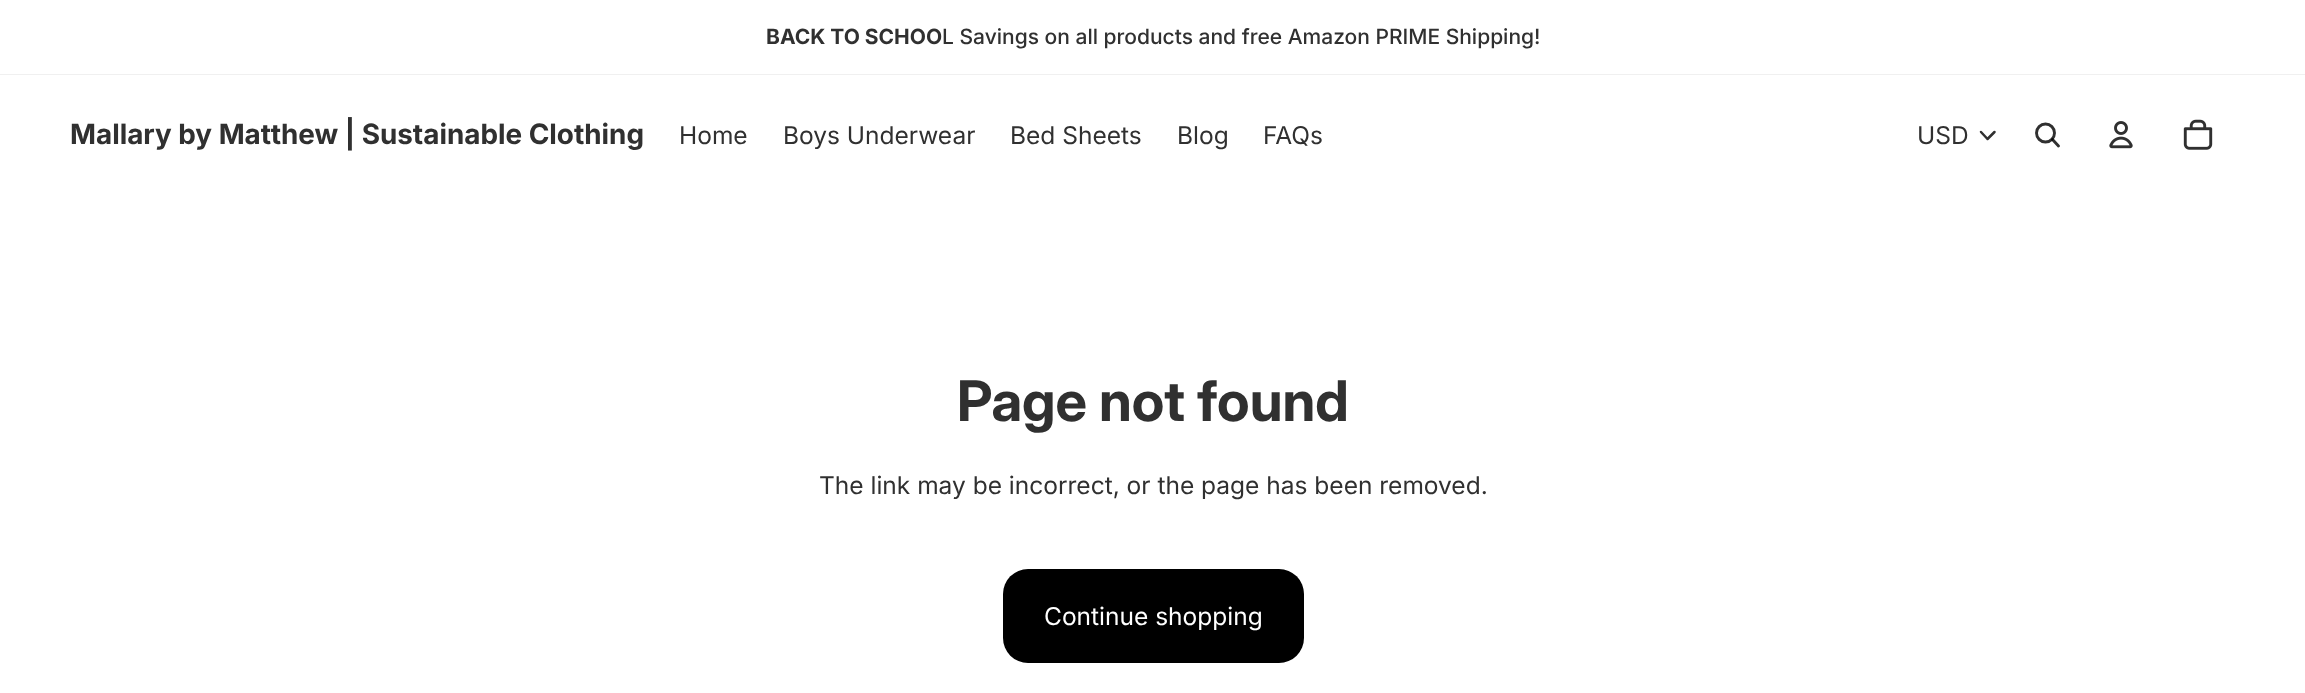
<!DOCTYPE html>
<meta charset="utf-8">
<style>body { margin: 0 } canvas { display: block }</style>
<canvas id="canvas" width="2305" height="693"></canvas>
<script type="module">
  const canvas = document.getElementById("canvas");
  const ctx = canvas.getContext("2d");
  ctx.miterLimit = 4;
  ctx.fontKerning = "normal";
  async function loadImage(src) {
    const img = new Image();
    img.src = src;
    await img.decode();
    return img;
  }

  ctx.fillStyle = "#ffffff";
  ctx.fillRect(0, 0, 2305, 693);
  ctx.fillStyle = "#f0f0f0";
  ctx.fillRect(0, 74, 2305, 1);
  ctx.font = "bold 21px Inter";
  ctx.fillStyle = "#303030";
  ctx.fillText("BACK TO SCHOO", 766, 44);
  ctx.font = "500 21px Inter";
  ctx.fillText("L Savings on all products and free Amazon PRIME Shipping!", 942, 44);
  ctx.font = "bold 28px 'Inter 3'";
  ctx.fillText("Mallary by Matthew | Sustainable Clothing", 70, 144);
  ctx.font = "24.5px Inter";
  ctx.fillText("Home", 679, 144);
  ctx.fillText("Boys Underwear", 783, 144);
  ctx.fillText("Bed Sheets", 1010, 144);
  ctx.fillText("Blog", 1177, 144);
  ctx.fillText("FAQs", 1263, 144);
  ctx.fillText("USD", 1917, 144);
  ctx.beginPath();
  ctx.moveTo(1994.5, 132);
  ctx.lineTo(1987.5, 139);
  ctx.lineTo(1981, 132);
  ctx.strokeStyle = "#303030";
  ctx.lineWidth = 2.5;
  ctx.lineCap = "round";
  ctx.lineJoin = "round";
  ctx.stroke();
  ctx.beginPath();
  ctx.arc(2045.5, 133, 9, 0, Math.PI * 2);
  ctx.lineWidth = 2.9;
  ctx.stroke();
  ctx.beginPath();
  ctx.moveTo(2052.5, 139.5);
  ctx.lineTo(2058.5, 146);
  ctx.strokeStyle = "rgba(0, 0, 0, 0.81)";
  ctx.stroke();
  ctx.drawImage(await loadImage("img1.png"), 2109, 121, 24, 28);
  ctx.drawImage(await loadImage("img2.png"), 2183, 119, 30, 31);
  ctx.font = "bold 56px 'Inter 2'";
  ctx.fillText("Page not found", 957, 421);
  ctx.font = "24.5px Inter";
  ctx.fillText("The link may be incorrect, or the page has been removed.", 819, 494);
  ctx.fillStyle = "#000000";
  ctx.beginPath();
  ctx.roundRect(1003, 569, 301, 94, 25);
  ctx.fill();
  ctx.fillStyle = "#ffffff";
  ctx.fillText("Continue shopping", 1044, 625);
</script>
